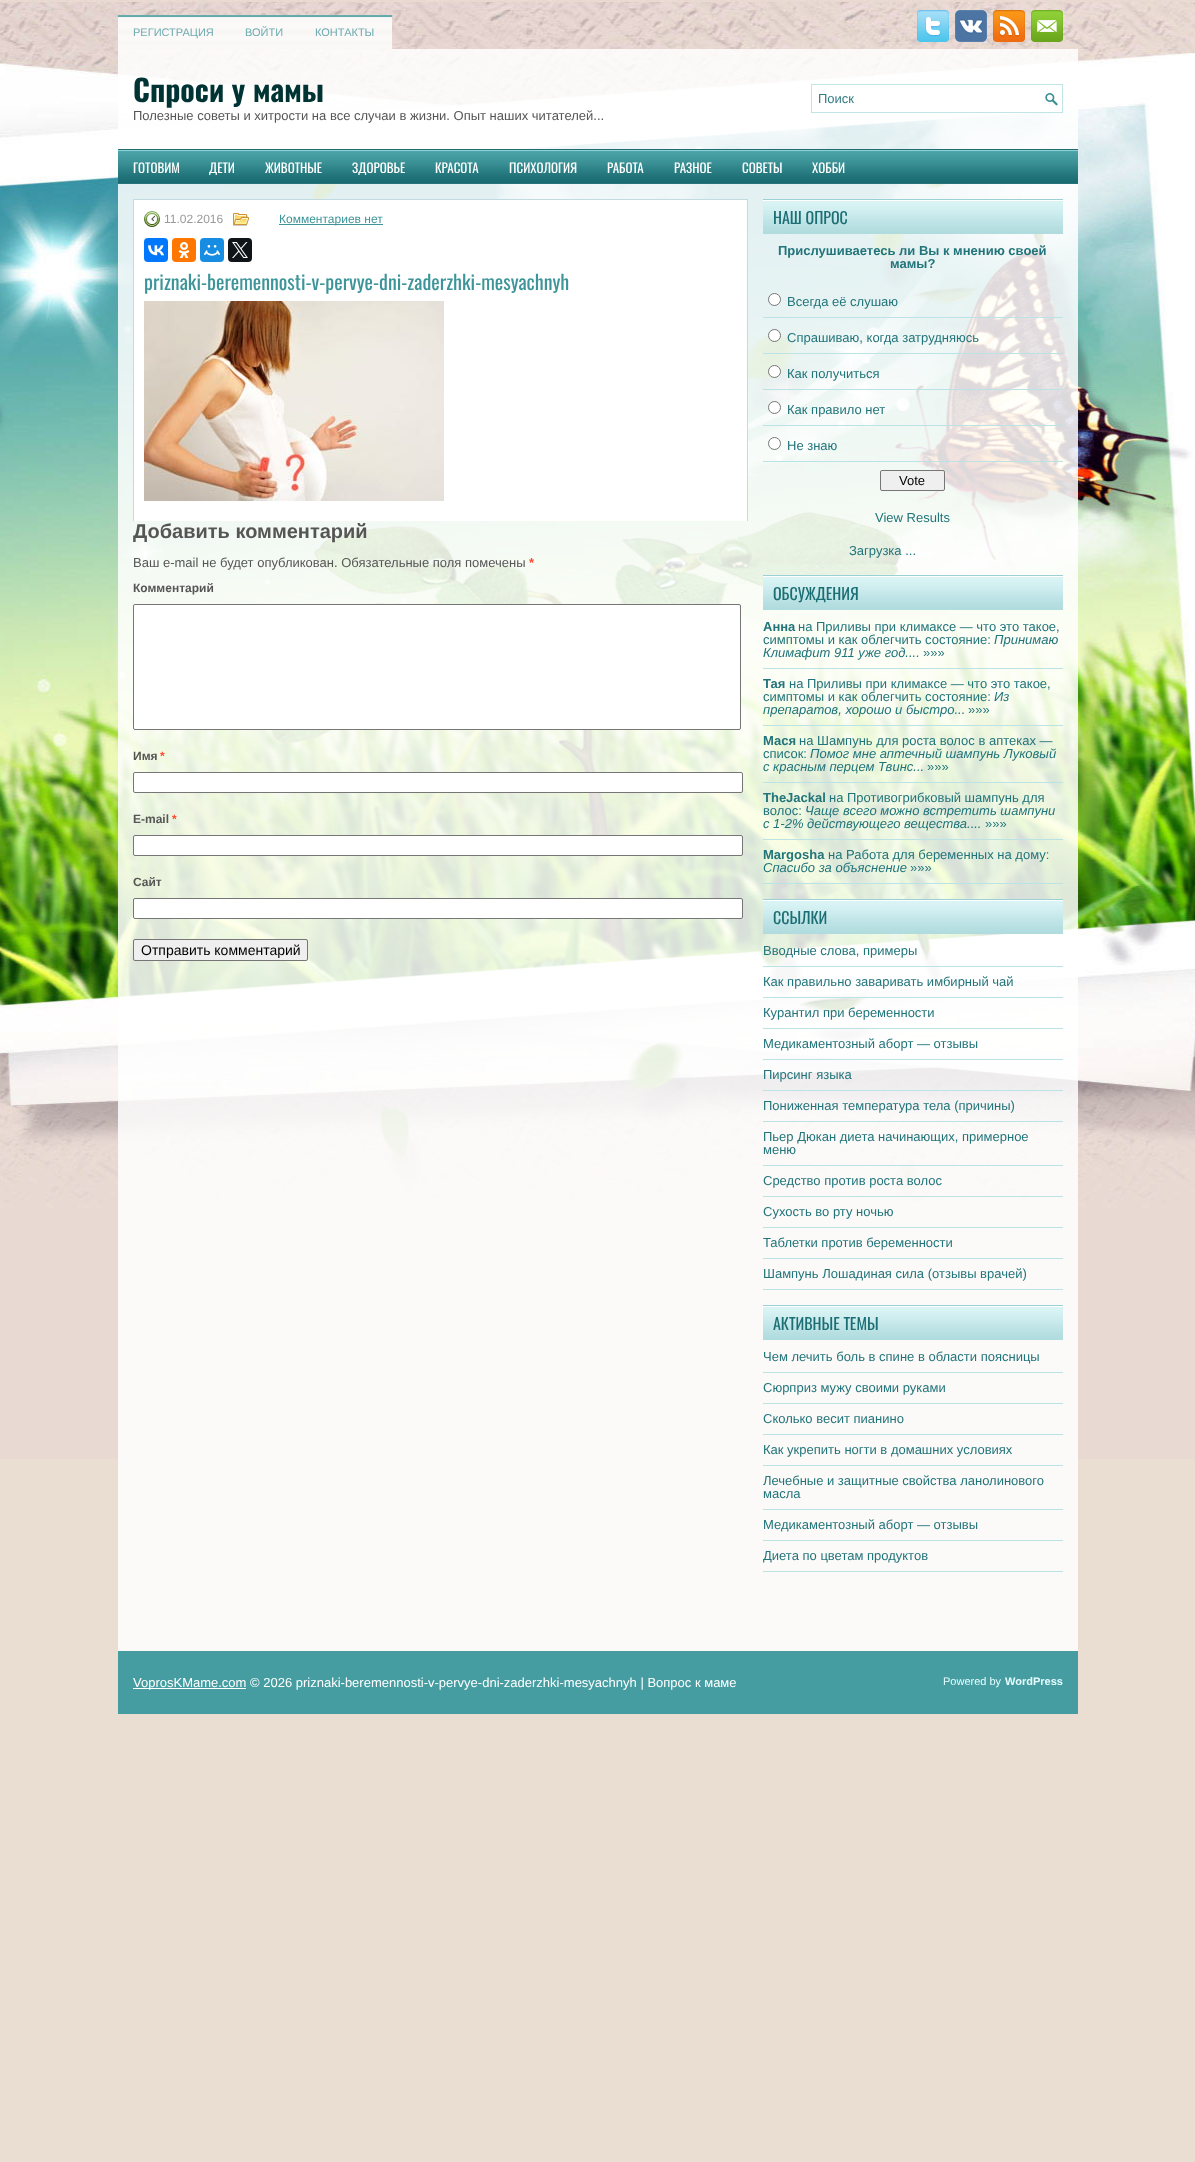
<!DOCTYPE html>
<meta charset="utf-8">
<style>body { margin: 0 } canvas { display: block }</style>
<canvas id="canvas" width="1195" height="2162"></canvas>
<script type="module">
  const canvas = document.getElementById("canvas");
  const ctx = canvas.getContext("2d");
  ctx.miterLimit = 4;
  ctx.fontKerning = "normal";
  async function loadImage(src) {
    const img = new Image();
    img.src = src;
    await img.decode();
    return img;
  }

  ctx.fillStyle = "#eaded2";
  ctx.fillRect(0, 0, 1195, 2162);
  ctx.drawImage(await loadImage("img1.png"), 0, 0, 1195, 1459);
  ctx.drawImage(await loadImage("img2.png"), 118, 15, 274, 34);
  ctx.font = "11px Liberation Sans";
  ctx.fillStyle = "#6eabaf";
  ctx.fillText("РЕГИСТРАЦИЯ", 133, 36);
  ctx.fillText("ВОЙТИ", 245, 36);
  ctx.fillText("КОНТАКТЫ", 315, 36);
  ctx.drawImage(await loadImage("img3.png"), 917, 10, 32, 32);
  ctx.drawImage(await loadImage("img4.png"), 955, 10, 32, 32);
  ctx.drawImage(await loadImage("img5.png"), 993, 10, 32, 32);
  ctx.drawImage(await loadImage("img6.png"), 1031, 10, 32, 32);
  ctx.fillStyle = "rgba(255, 255, 255, 0.85)";
  ctx.fillRect(118, 49, 960, 100);
  ctx.font = "bold 30px Oswald";
  ctx.fillStyle = "#003333";
  ctx.fillText("Спроси у мамы", 133, 102);
  ctx.font = "13px Liberation Sans";
  ctx.fillStyle = "#555555";
  ctx.fillText("Полезные советы и хитрости на все случаи в жизни. Опыт наших читателей...", 133, 120);
  ctx.fillStyle = "#ffffff";
  ctx.fillRect(1043, 111, 19, 1);
  ctx.drawImage(await loadImage("img7.png"), 1045, 93, 13, 13);
  ctx.strokeStyle = "#c1e5e7";
  ctx.strokeRect(811.5, 84.5, 251, 28);
  ctx.fillStyle = "#337c81";
  ctx.fillText("Поиск", 818, 103);
  ctx.drawImage(await loadImage("img8.png"), 118, 150, 960, 34);
  ctx.fillStyle = "#226c71";
  ctx.fillRect(118, 149, 960, 1);
  ctx.font = "13px Oswald";
  ctx.fillStyle = "#ffffff";
  ctx.fillText("ГОТОВИМ", 133, 173);
  ctx.fillText("ДЕТИ", 209, 173);
  ctx.fillText("ЖИВОТНЫЕ", 265, 173);
  ctx.fillText("ЗДОРОВЬЕ", 352, 173);
  ctx.fillText("КРАСОТА", 435, 173);
  ctx.fillText("ПСИХОЛОГИЯ", 509, 173);
  ctx.fillText("РАБОТА", 607, 173);
  ctx.fillText("РАЗНОЕ", 674, 173);
  ctx.fillText("СОВЕТЫ", 742, 173);
  ctx.fillText("ХОББИ", 812, 173);
  ctx.fillStyle = "rgba(255, 255, 255, 0.85)";
  ctx.fillRect(118, 184, 960, 1467);
  ctx.fillStyle = "#ffffff";
  ctx.fillRect(134, 200, 613, 321);
  ctx.fillStyle = "#c1dbe1";
  ctx.fillRect(133, 199, 615, 1);
  ctx.fillRect(747, 199, 1, 322);
  ctx.fillRect(133, 199, 1, 322);
  ctx.drawImage(await loadImage("img9.png"), 144, 211, 16, 16);
  ctx.font = "12px Liberation Sans";
  ctx.fillStyle = "#999999";
  ctx.fillText("11.02.2016", 164, 223);
  ctx.drawImage(await loadImage("img10.png"), 233, 213, 16, 13);
  ctx.fillStyle = "#3e9599";
  ctx.fillRect(279, 224, 104, 1);
  ctx.fillText("Комментариев нет", 279, 223);
  ctx.fillStyle = "#0077ff";
  ctx.beginPath();
  ctx.roundRect(144, 238, 24, 24, 4);
  ctx.fill();
  ctx.drawImage(await loadImage("img11.png"), 148, 245, 16, 11);
  ctx.fillStyle = "#ff7700";
  ctx.beginPath();
  ctx.roundRect(172, 238, 24, 24, 4);
  ctx.fill();
  ctx.drawImage(await loadImage("img12.png"), 178, 242, 12, 16);
  ctx.fillStyle = "#168de2";
  ctx.beginPath();
  ctx.roundRect(200, 238, 24, 24, 4);
  ctx.fill();
  ctx.drawImage(await loadImage("img13.png"), 204, 245, 16, 11);
  ctx.fillStyle = "#0f1419";
  ctx.beginPath();
  ctx.roundRect(228, 238, 24, 24, 4);
  ctx.fill();
  ctx.drawImage(await loadImage("img14.png"), 232, 242, 16, 16);
  ctx.font = "20px Oswald";
  ctx.fillStyle = "#3e9599";
  ctx.fillText("priznaki-beremennosti-v-pervye-dni-zaderzhki-mesyachnyh", 144, 290);
  ctx.drawImage(await loadImage("img15.png"), 144, 301, 300, 200);
  ctx.save();
  ctx.beginPath();
  ctx.rect(133, 521, 615, 440);
  ctx.clip();
  ctx.font = "bold 20px Liberation Sans";
  ctx.fillStyle = "#555555";
  ctx.fillText("Добавить комментарий", 133, 538);
  ctx.restore();
  ctx.font = "13px Liberation Sans";
  ctx.fillStyle = "#555555";
  ctx.fillText("Ваш e-mail не будет опубликован. Обязательные поля помечены", 133, 567);
  ctx.font = "bold 13px Liberation Sans";
  ctx.fillStyle = "#ff4b33";
  ctx.fillText("*", 529, 567);
  ctx.font = "bold 12px Liberation Sans";
  ctx.fillStyle = "#555555";
  ctx.fillText("Комментарий", 133, 592);
  ctx.fillStyle = "#ffffff";
  ctx.beginPath();
  ctx.roundRect(133.5, 604.5, 607, 125, 1.5);
  ctx.fill();
  ctx.strokeStyle = "#767676";
  ctx.stroke();
  ctx.fillStyle = "#555555";
  ctx.fillText("Имя", 133, 760);
  ctx.fillStyle = "#ff4b33";
  ctx.fillText("*", 160, 760);
  ctx.fillStyle = "#ffffff";
  ctx.beginPath();
  ctx.roundRect(133.5, 772.5, 609, 20, 1.5);
  ctx.fill();
  ctx.stroke();
  ctx.fillStyle = "#555555";
  ctx.fillText("E-mail", 133, 823);
  ctx.fillStyle = "#ff4b33";
  ctx.fillText("*", 172, 823);
  ctx.fillStyle = "#ffffff";
  ctx.beginPath();
  ctx.roundRect(133.5, 835.5, 609, 20, 1.5);
  ctx.fill();
  ctx.stroke();
  ctx.fillStyle = "#555555";
  ctx.fillText("Сайт", 133, 886);
  ctx.fillStyle = "#ffffff";
  ctx.beginPath();
  ctx.roundRect(133.5, 898.5, 609, 20, 1.5);
  ctx.fill();
  ctx.stroke();
  ctx.fillStyle = "#efefef";
  ctx.beginPath();
  ctx.roundRect(133.5, 939.5, 174, 21, 1.5);
  ctx.fill();
  ctx.stroke();
  ctx.font = "14px Liberation Sans";
  ctx.fillStyle = "#000000";
  ctx.fillText("Отправить комментарий", 141, 955);
  ctx.drawImage(await loadImage("img16.png"), 763, 199, 300, 35);
  ctx.font = "16px Oswald";
  ctx.fillStyle = "#1b6e73";
  ctx.fillText("НАШ ОПРОС", 773, 224);
  ctx.font = "bold 13px Liberation Sans";
  ctx.fillStyle = "#21747a";
  ctx.fillText("Прислушиваетесь ли Вы к мнению своей", 778, 255);
  ctx.fillText("мамы?", 890, 268);
  ctx.fillStyle = "#bbe2e4";
  ctx.fillRect(763, 317, 300, 1);
  ctx.fillStyle = "#ffffff";
  ctx.beginPath();
  ctx.arc(774.5, 299.5, 6, 0, Math.PI * 2);
  ctx.fill();
  ctx.stroke();
  ctx.font = "13px Liberation Sans";
  ctx.fillStyle = "#21747a";
  ctx.fillText("Всегда её слушаю", 787, 306);
  ctx.fillStyle = "#bbe2e4";
  ctx.fillRect(763, 353, 300, 1);
  ctx.fillStyle = "#ffffff";
  ctx.beginPath();
  ctx.arc(774.5, 335.5, 6, 0, Math.PI * 2);
  ctx.fill();
  ctx.stroke();
  ctx.fillStyle = "#21747a";
  ctx.fillText("Спрашиваю, когда затрудняюсь", 787, 342);
  ctx.fillStyle = "#bbe2e4";
  ctx.fillRect(763, 389, 300, 1);
  ctx.fillStyle = "#ffffff";
  ctx.beginPath();
  ctx.arc(774.5, 371.5, 6, 0, Math.PI * 2);
  ctx.fill();
  ctx.stroke();
  ctx.fillStyle = "#21747a";
  ctx.fillText("Как получиться", 787, 378);
  ctx.fillStyle = "#bbe2e4";
  ctx.fillRect(763, 425, 300, 1);
  ctx.fillStyle = "#ffffff";
  ctx.beginPath();
  ctx.arc(774.5, 407.5, 6, 0, Math.PI * 2);
  ctx.fill();
  ctx.stroke();
  ctx.fillStyle = "#21747a";
  ctx.fillText("Как правило нет", 787, 414);
  ctx.fillStyle = "#bbe2e4";
  ctx.fillRect(763, 461, 300, 1);
  ctx.fillStyle = "#ffffff";
  ctx.beginPath();
  ctx.arc(774.5, 443.5, 6, 0, Math.PI * 2);
  ctx.fill();
  ctx.stroke();
  ctx.fillStyle = "#21747a";
  ctx.fillText("Не знаю", 787, 450);
  ctx.fillStyle = "#efefef";
  ctx.beginPath();
  ctx.roundRect(880.5, 470.5, 64, 20, 1.5);
  ctx.fill();
  ctx.stroke();
  ctx.fillStyle = "#000000";
  ctx.fillText("Vote", 899, 485);
  ctx.fillStyle = "#21747a";
  ctx.fillText("View Results", 875, 522);
  ctx.fillText("Загрузка ...", 849, 555);
  ctx.drawImage(await loadImage("img16.png"), 763, 575, 300, 35);
  ctx.font = "16px Oswald";
  ctx.fillStyle = "#1b6e73";
  ctx.fillText("ОБСУЖДЕНИЯ", 773, 600);
  ctx.fillStyle = "#bbe2e4";
  ctx.fillRect(763, 668, 300, 1);
  ctx.font = "bold 13px Liberation Sans";
  ctx.fillStyle = "#21747a";
  ctx.fillText("Анна", 763, 631);
  ctx.font = "13px Liberation Sans";
  ctx.fillText("на Приливы при климаксе — что это такое,", 798, 631);
  ctx.fillText("симптомы и как облегчить состояние:", 763, 644);
  ctx.font = "italic 13px Liberation Sans";
  ctx.fillText("Принимаю", 994, 644);
  ctx.fillText("Климафит 911 уже год....", 763, 657);
  ctx.font = "13px Liberation Sans";
  ctx.fillText("»»»", 923, 657);
  ctx.fillStyle = "#bbe2e4";
  ctx.fillRect(763, 725, 300, 1);
  ctx.font = "bold 13px Liberation Sans";
  ctx.fillStyle = "#21747a";
  ctx.fillText("Тая", 763, 688);
  ctx.font = "13px Liberation Sans";
  ctx.fillText("на Приливы при климаксе — что это такое,", 789, 688);
  ctx.fillText("симптомы и как облегчить состояние:", 763, 701);
  ctx.font = "italic 13px Liberation Sans";
  ctx.fillText("Из", 994, 701);
  ctx.fillText("препаратов, хорошо и быстро...", 763, 714);
  ctx.font = "13px Liberation Sans";
  ctx.fillText("»»»", 968, 714);
  ctx.fillStyle = "#bbe2e4";
  ctx.fillRect(763, 782, 300, 1);
  ctx.font = "bold 13px Liberation Sans";
  ctx.fillStyle = "#21747a";
  ctx.fillText("Мася", 763, 745);
  ctx.font = "13px Liberation Sans";
  ctx.fillText("на Шампунь для роста волос в аптеках —", 799, 745);
  ctx.fillText("список:", 763, 758);
  ctx.font = "italic 13px Liberation Sans";
  ctx.fillText("Помог мне аптечный шампунь Луковый", 810, 758);
  ctx.fillText("с красным перцем Твинс...", 763, 771);
  ctx.font = "13px Liberation Sans";
  ctx.fillText("»»»", 927, 771);
  ctx.fillStyle = "#bbe2e4";
  ctx.fillRect(763, 839, 300, 1);
  ctx.font = "bold 13px Liberation Sans";
  ctx.fillStyle = "#21747a";
  ctx.fillText("TheJackal", 763, 802);
  ctx.font = "13px Liberation Sans";
  ctx.fillText("на Противогрибковый шампунь для", 829, 802);
  ctx.fillText("волос:", 763, 815);
  ctx.font = "italic 13px Liberation Sans";
  ctx.fillText("Чаще всего можно встретить шампуни", 805, 815);
  ctx.fillText("с 1-2% действующего вещества....", 763, 828);
  ctx.font = "13px Liberation Sans";
  ctx.fillText("»»»", 985, 828);
  ctx.fillStyle = "#bbe2e4";
  ctx.fillRect(763, 883, 300, 1);
  ctx.font = "bold 13px Liberation Sans";
  ctx.fillStyle = "#21747a";
  ctx.fillText("Margosha", 763, 859);
  ctx.font = "13px Liberation Sans";
  ctx.fillText("на Работа для беременных на дому:", 828, 859);
  ctx.font = "italic 13px Liberation Sans";
  ctx.fillText("Спасибо за объяснение", 763, 872);
  ctx.font = "13px Liberation Sans";
  ctx.fillText("»»»", 910, 872);
  ctx.drawImage(await loadImage("img16.png"), 763, 899, 300, 35);
  ctx.font = "16px Oswald";
  ctx.fillStyle = "#1b6e73";
  ctx.fillText("ССЫЛКИ", 773, 924);
  ctx.fillStyle = "#bbe2e4";
  ctx.fillRect(763, 966, 300, 1);
  ctx.font = "13px Liberation Sans";
  ctx.fillStyle = "#21747a";
  ctx.fillText("Вводные слова, примеры", 763, 955);
  ctx.fillStyle = "#bbe2e4";
  ctx.fillRect(763, 997, 300, 1);
  ctx.fillStyle = "#21747a";
  ctx.fillText("Как правильно заваривать имбирный чай", 763, 986);
  ctx.fillStyle = "#bbe2e4";
  ctx.fillRect(763, 1028, 300, 1);
  ctx.fillStyle = "#21747a";
  ctx.fillText("Курантил при беременности", 763, 1017);
  ctx.fillStyle = "#bbe2e4";
  ctx.fillRect(763, 1059, 300, 1);
  ctx.fillStyle = "#21747a";
  ctx.fillText("Медикаментозный аборт — отзывы", 763, 1048);
  ctx.fillStyle = "#bbe2e4";
  ctx.fillRect(763, 1090, 300, 1);
  ctx.fillStyle = "#21747a";
  ctx.fillText("Пирсинг языка", 763, 1079);
  ctx.fillStyle = "#bbe2e4";
  ctx.fillRect(763, 1121, 300, 1);
  ctx.fillStyle = "#21747a";
  ctx.fillText("Пониженная температура тела (причины)", 763, 1110);
  ctx.fillStyle = "#bbe2e4";
  ctx.fillRect(763, 1165, 300, 1);
  ctx.fillStyle = "#21747a";
  ctx.fillText("Пьер Дюкан диета начинающих, примерное", 763, 1141);
  ctx.fillText("меню", 763, 1154);
  ctx.fillStyle = "#bbe2e4";
  ctx.fillRect(763, 1196, 300, 1);
  ctx.fillStyle = "#21747a";
  ctx.fillText("Средство против роста волос", 763, 1185);
  ctx.fillStyle = "#bbe2e4";
  ctx.fillRect(763, 1227, 300, 1);
  ctx.fillStyle = "#21747a";
  ctx.fillText("Сухость во рту ночью", 763, 1216);
  ctx.fillStyle = "#bbe2e4";
  ctx.fillRect(763, 1258, 300, 1);
  ctx.fillStyle = "#21747a";
  ctx.fillText("Таблетки против беременности", 763, 1247);
  ctx.fillStyle = "#bbe2e4";
  ctx.fillRect(763, 1289, 300, 1);
  ctx.fillStyle = "#21747a";
  ctx.fillText("Шампунь Лошадиная сила (отзывы врачей)", 763, 1278);
  ctx.drawImage(await loadImage("img16.png"), 763, 1305, 300, 35);
  ctx.font = "16px Oswald";
  ctx.fillStyle = "#1b6e73";
  ctx.fillText("АКТИВНЫЕ ТЕМЫ", 773, 1330);
  ctx.fillStyle = "#bbe2e4";
  ctx.fillRect(763, 1372, 300, 1);
  ctx.font = "13px Liberation Sans";
  ctx.fillStyle = "#21747a";
  ctx.fillText("Чем лечить боль в спине в области поясницы", 763, 1361);
  ctx.fillStyle = "#bbe2e4";
  ctx.fillRect(763, 1403, 300, 1);
  ctx.fillStyle = "#21747a";
  ctx.fillText("Сюрприз мужу своими руками", 763, 1392);
  ctx.fillStyle = "#bbe2e4";
  ctx.fillRect(763, 1434, 300, 1);
  ctx.fillStyle = "#21747a";
  ctx.fillText("Сколько весит пианино", 763, 1423);
  ctx.fillStyle = "#bbe2e4";
  ctx.fillRect(763, 1465, 300, 1);
  ctx.fillStyle = "#21747a";
  ctx.fillText("Как укрепить ногти в домашних условиях", 763, 1454);
  ctx.fillStyle = "#bbe2e4";
  ctx.fillRect(763, 1509, 300, 1);
  ctx.fillStyle = "#21747a";
  ctx.fillText("Лечебные и защитные свойства ланолинового", 763, 1485);
  ctx.fillText("масла", 763, 1498);
  ctx.fillStyle = "#bbe2e4";
  ctx.fillRect(763, 1540, 300, 1);
  ctx.fillStyle = "#21747a";
  ctx.fillText("Медикаментозный аборт — отзывы", 763, 1529);
  ctx.fillStyle = "#bbe2e4";
  ctx.fillRect(763, 1571, 300, 1);
  ctx.save();
  ctx.beginPath();
  ctx.rect(763, 199, 300, 1437);
  ctx.clip();
  ctx.fillStyle = "#21747a";
  ctx.fillText("Диета по цветам продуктов", 763, 1560);
  ctx.restore();
  ctx.fillStyle = "#469da1";
  ctx.fillRect(118, 1651, 960, 63);
  ctx.fillStyle = "#ffffff";
  ctx.fillRect(133, 1688, 113, 1);
  ctx.fillText("VoprosKMame.com © 2026 priznaki-beremennosti-v-pervye-dni-zaderzhki-mesyachnyh | Вопрос к маме", 133, 1687);
  ctx.font = "11px Liberation Sans";
  ctx.fillStyle = "#e6feff";
  ctx.fillText("Powered by", 943, 1685);
  ctx.font = "bold 11px Liberation Sans";
  ctx.fillText("WordPress", 1005, 1685);
</script>
